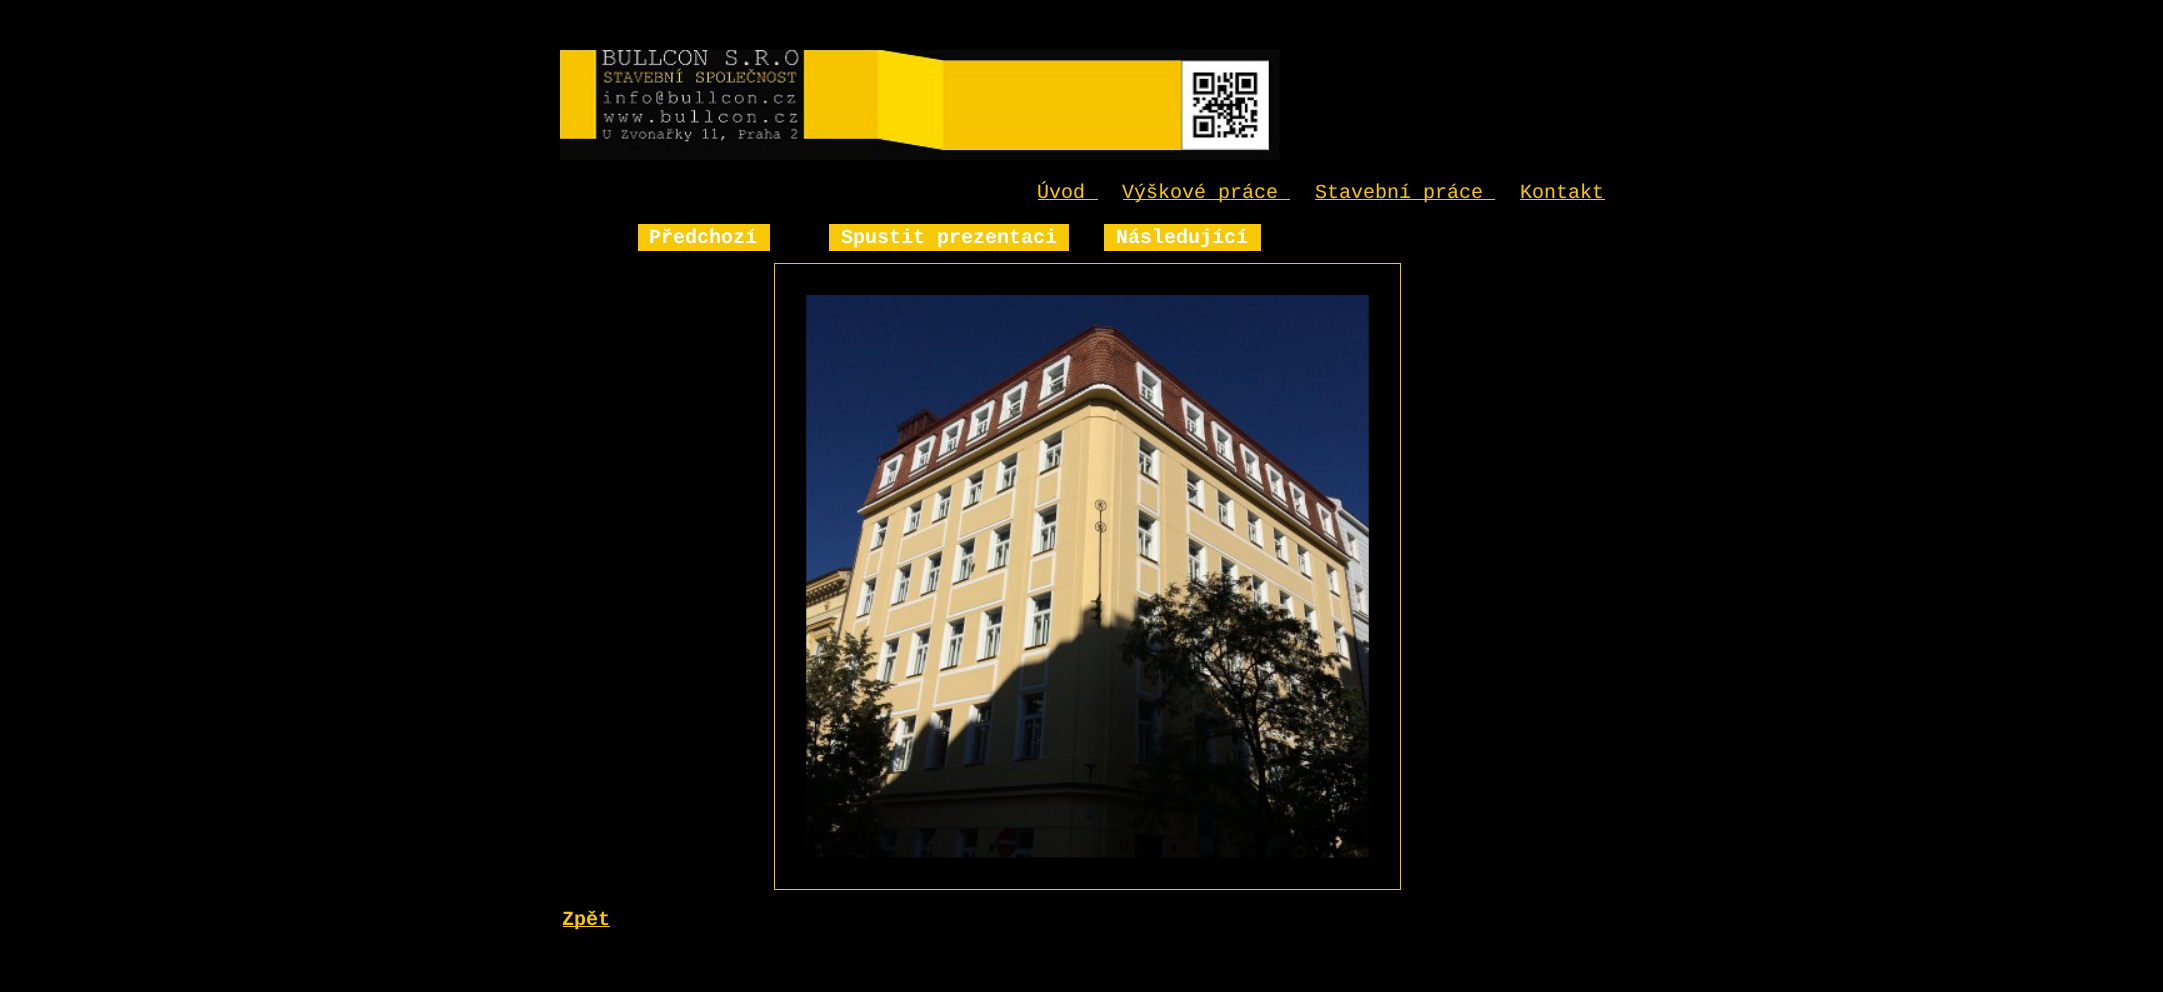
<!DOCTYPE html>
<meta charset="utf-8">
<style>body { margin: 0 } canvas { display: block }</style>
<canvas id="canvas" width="2163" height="992"></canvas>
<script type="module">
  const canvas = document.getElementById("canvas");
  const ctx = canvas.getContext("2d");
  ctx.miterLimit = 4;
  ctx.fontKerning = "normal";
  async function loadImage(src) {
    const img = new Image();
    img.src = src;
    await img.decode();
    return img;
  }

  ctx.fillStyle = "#000000";
  ctx.fillRect(0, 0, 2163, 992);
  ctx.drawImage(await loadImage("img1.png"), 560, 50, 720, 110);
  ctx.font = "20px Liberation Mono";
  ctx.fillStyle = "#f7c805";
  ctx.fillText("Úvod", 1037, 198);
  ctx.fillRect(1038, 199, 60, 1);
  ctx.fillRect(1123, 199, 167, 1);
  ctx.fillText("Výškové práce", 1122, 198);
  ctx.fillRect(1315, 199, 180, 1);
  ctx.fillText("Stavební práce", 1315, 198);
  ctx.fillText("Kontakt", 1520, 198);
  ctx.fillRect(1520, 199, 85, 1);
  ctx.fillRect(638, 224, 132, 27);
  ctx.font = "bold 20px Liberation Mono";
  ctx.fillStyle = "#ffffff";
  ctx.fillText("Předchozí", 649, 243);
  ctx.fillStyle = "#f7c805";
  ctx.fillRect(829, 224, 240, 27);
  ctx.fillStyle = "#ffffff";
  ctx.fillText("Spustit prezentaci", 841, 243);
  ctx.fillStyle = "#f7c805";
  ctx.fillRect(1104, 224, 157, 27);
  ctx.fillStyle = "#ffffff";
  ctx.fillText("Následující", 1116, 243);
  ctx.strokeStyle = "#f7c805";
  ctx.strokeRect(774.5, 263.5, 626, 626);
  ctx.drawImage(await loadImage("img2.png"), 806, 295, 563, 563);
  ctx.fillStyle = "#f7c805";
  ctx.fillRect(563, 926, 47, 1);
  ctx.save();
  ctx.beginPath();
  ctx.rect(563, 175, 1041, 781);
  ctx.clip();
  ctx.fillText("Zpět", 562, 925);
  ctx.restore();
</script>
